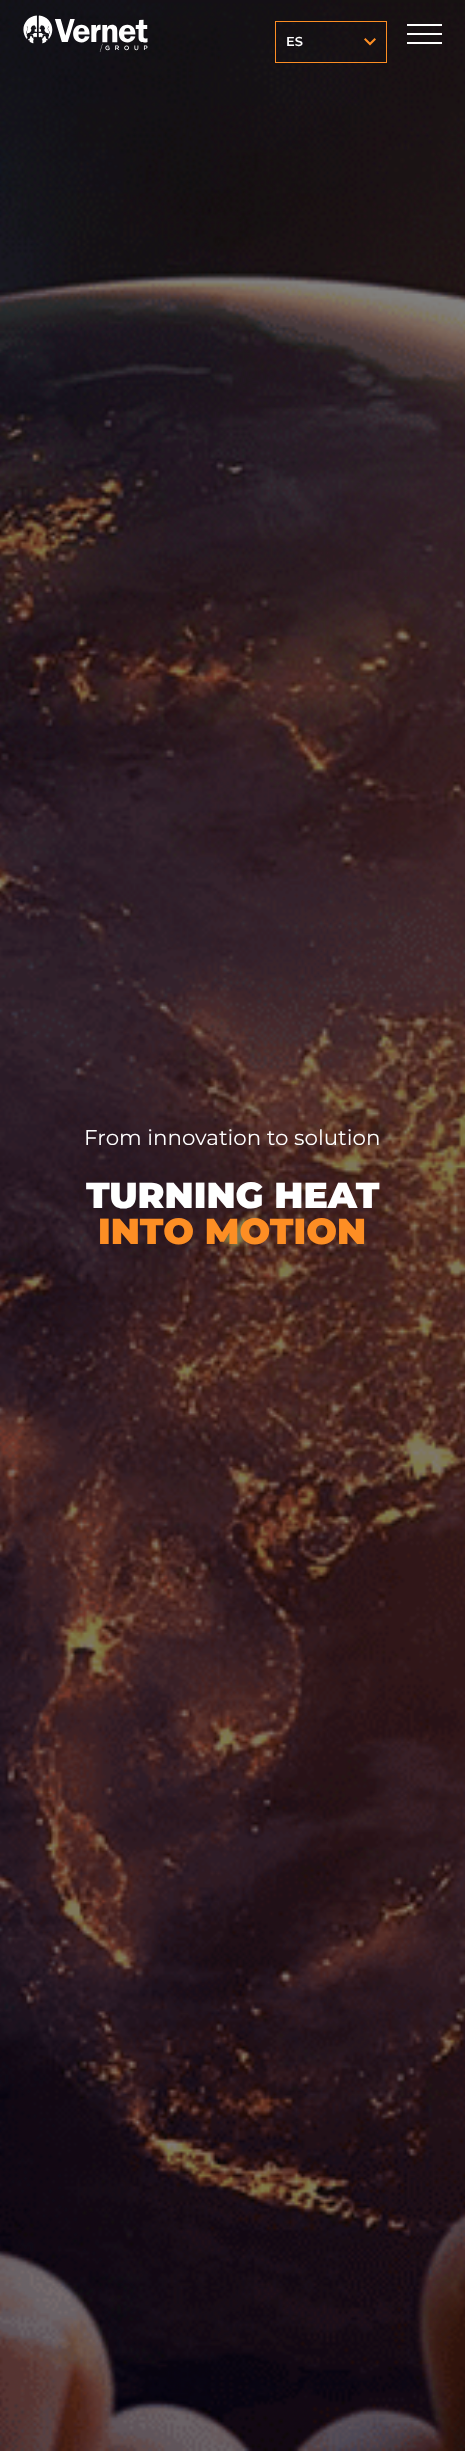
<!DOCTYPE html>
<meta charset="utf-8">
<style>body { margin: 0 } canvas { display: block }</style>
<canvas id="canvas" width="465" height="2451"></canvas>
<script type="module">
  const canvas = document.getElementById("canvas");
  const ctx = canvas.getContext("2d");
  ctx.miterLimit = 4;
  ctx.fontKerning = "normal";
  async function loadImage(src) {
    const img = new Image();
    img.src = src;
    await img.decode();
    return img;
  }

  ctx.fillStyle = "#ffffff";
  ctx.fillRect(0, 0, 465, 2451);
  ctx.drawImage(await loadImage("img3.png"), 0, 0, 465, 2451);
  ctx.drawImage(await loadImage("img1.png"), 23, 15, 125, 37);
  ctx.strokeStyle = "#fd8e24";
  ctx.strokeRect(275.5, 21.5, 111, 41);
  ctx.font = "600 13px Montserrat";
  ctx.fillText("ES", 286, 46);
  ctx.drawImage(await loadImage("img2.png"), 364, 38, 12, 8);
  ctx.fillRect(407, 24, 35, 2);
  ctx.fillRect(407, 33, 35, 2);
  ctx.fillRect(407, 42, 35, 2);
  ctx.font = "21.4px Montserrat";
  ctx.fillText("From innovation to solution", 84, 1145);
  ctx.font = "900 36.25px Montserrat";
  ctx.fillText("TURNING HEAT", 86, 1208);
  ctx.fillStyle = "#fd8e24";
  ctx.fillText("INTO MOTION", 98, 1244);
</script>
